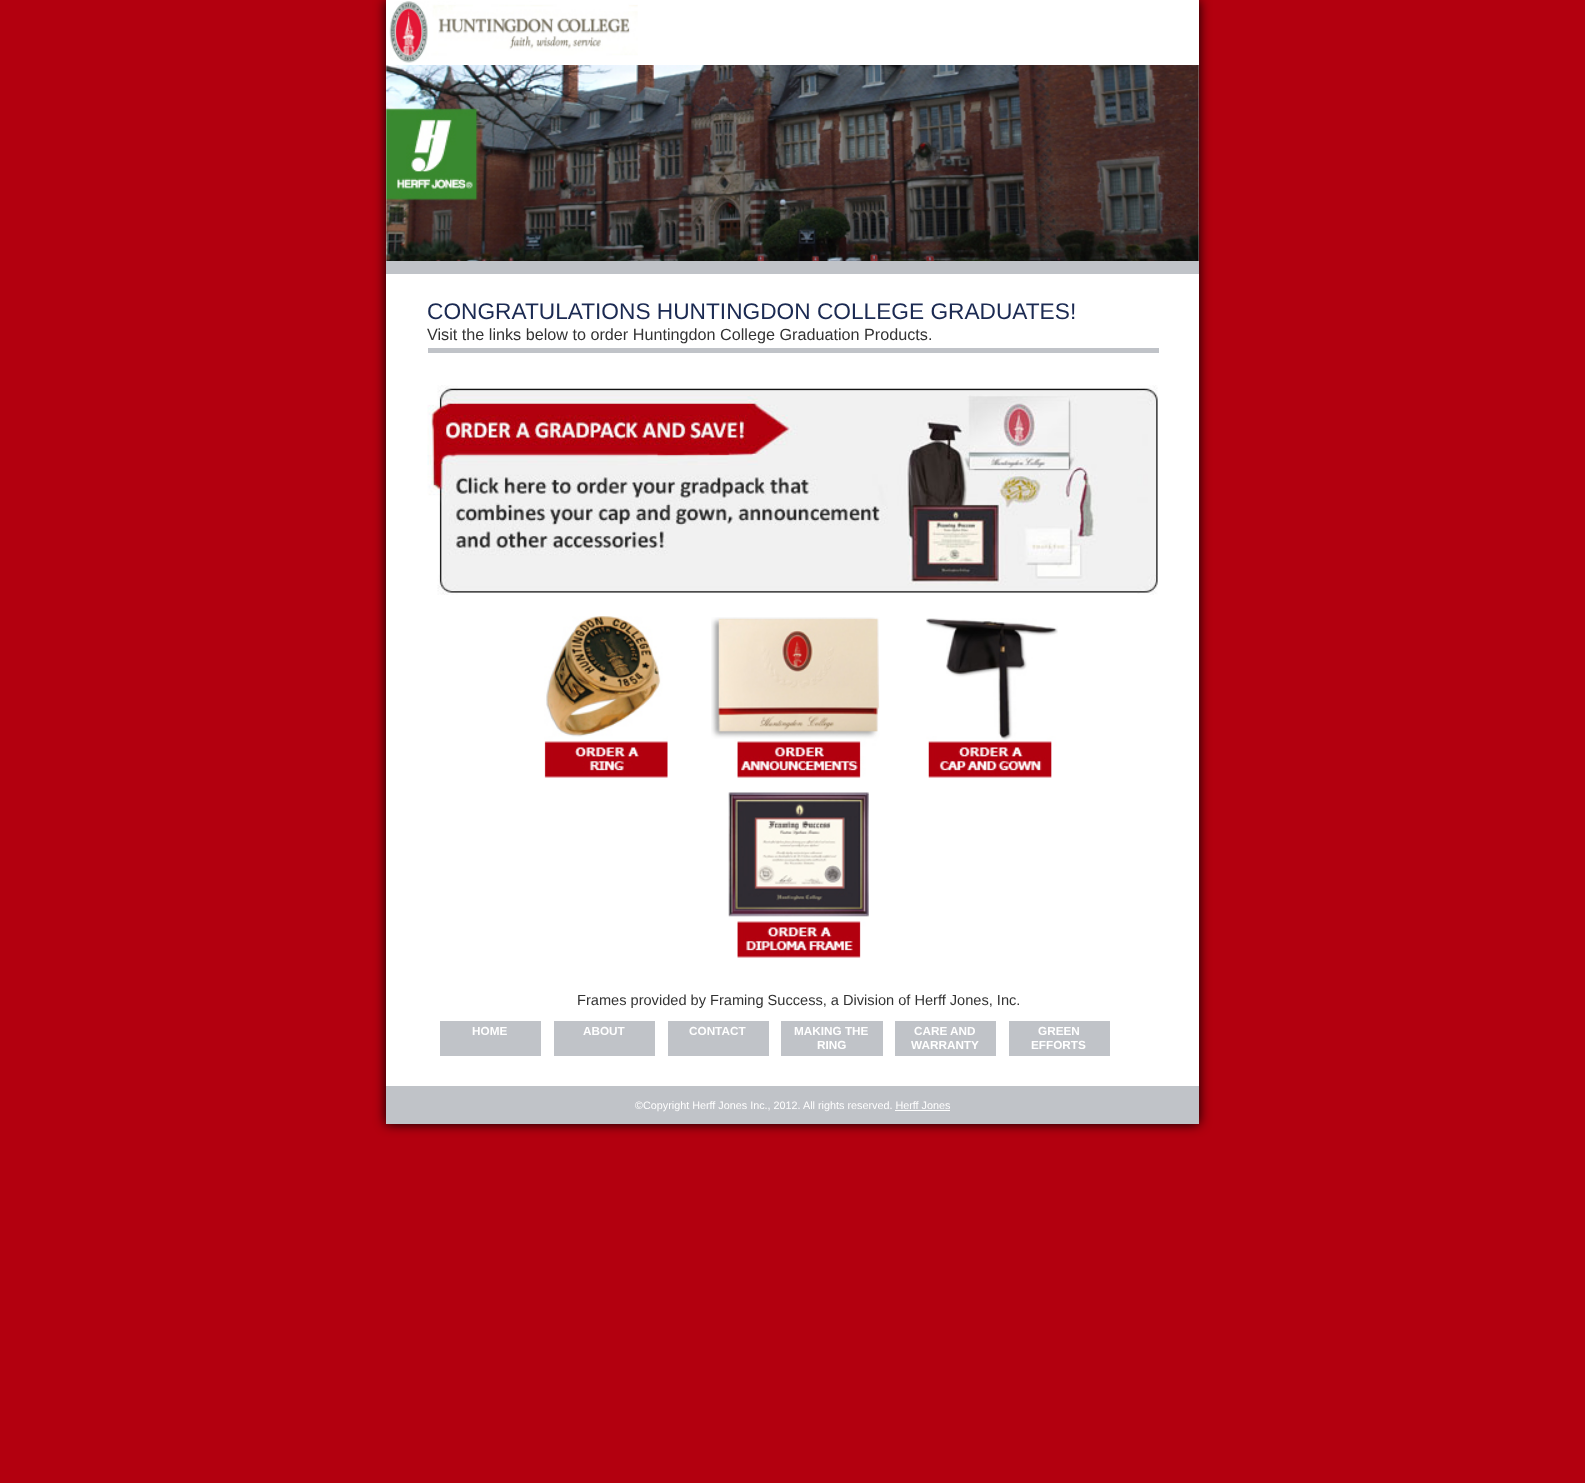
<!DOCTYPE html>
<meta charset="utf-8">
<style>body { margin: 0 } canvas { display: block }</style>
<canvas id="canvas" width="1585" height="1483"></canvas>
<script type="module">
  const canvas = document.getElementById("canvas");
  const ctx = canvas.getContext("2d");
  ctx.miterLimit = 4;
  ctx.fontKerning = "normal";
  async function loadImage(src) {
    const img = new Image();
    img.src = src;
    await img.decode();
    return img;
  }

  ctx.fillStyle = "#b3000f";
  ctx.fillRect(0, 0, 1585, 1483);
  ctx.fillStyle = "#000000";
  ctx.filter = "blur(6px)";
  ctx.beginPath();
  ctx.rect(386, 0, 813, 1124);
  ctx.fill();
  ctx.filter = "none";
  ctx.fillStyle = "#ffffff";
  ctx.fillRect(386, 0, 813, 1086);
  ctx.drawImage(await loadImage("img1.png"), 389, 1, 249, 62);
  ctx.drawImage(await loadImage("img2.png"), 386, 65, 813, 196);
  ctx.fillStyle = "#c0c3c8";
  ctx.fillRect(386, 261, 813, 13);
  ctx.font = "22.7px Liberation Sans";
  ctx.fillStyle = "#1b2a52";
  ctx.fillText("CONGRATULATIONS HUNTINGDON COLLEGE GRADUATES!", 427, 319);
  ctx.font = "16.2px Liberation Sans";
  ctx.fillStyle = "#333333";
  ctx.fillText("Visit the links below to order Huntingdon College Graduation Products.", 427, 340);
  ctx.fillStyle = "#c0c3c8";
  ctx.fillRect(428, 348, 731, 5);
  ctx.drawImage(await loadImage("img3.png"), 427, 385, 731, 210);
  ctx.drawImage(await loadImage("img4.png"), 544, 616, 124, 162);
  ctx.drawImage(await loadImage("img5.png"), 711, 617, 169, 161);
  ctx.drawImage(await loadImage("img6.png"), 926, 618, 132, 160);
  ctx.drawImage(await loadImage("img7.png"), 728, 792, 141, 166);
  ctx.font = "14.6px Liberation Sans";
  ctx.fillStyle = "#333333";
  ctx.fillText("Frames provided by Framing Success, a Division of Herff Jones, Inc.", 577, 1005);
  ctx.fillStyle = "#c0c3c8";
  ctx.fillRect(440, 1021, 101, 35);
  ctx.font = "bold 11.75px Liberation Sans";
  ctx.fillStyle = "#ffffff";
  ctx.fillText("HOME", 472, 1035);
  ctx.fillStyle = "#c0c3c8";
  ctx.fillRect(554, 1021, 101, 35);
  ctx.fillStyle = "#ffffff";
  ctx.fillText("ABOUT", 583, 1035);
  ctx.fillStyle = "#c0c3c8";
  ctx.fillRect(668, 1021, 101, 35);
  ctx.fillStyle = "#ffffff";
  ctx.fillText("CONTACT", 689, 1035);
  ctx.fillStyle = "#c0c3c8";
  ctx.fillRect(781, 1021, 102, 35);
  ctx.fillStyle = "#ffffff";
  ctx.fillText("MAKING THE", 794, 1035);
  ctx.fillText("RING", 817, 1049);
  ctx.fillStyle = "#c0c3c8";
  ctx.fillRect(895, 1021, 101, 35);
  ctx.fillStyle = "#ffffff";
  ctx.fillText("CARE AND", 914, 1035);
  ctx.fillText("WARRANTY", 911, 1049);
  ctx.fillStyle = "#c0c3c8";
  ctx.fillRect(1009, 1021, 101, 35);
  ctx.fillStyle = "#ffffff";
  ctx.fillText("GREEN", 1038, 1035);
  ctx.fillText("EFFORTS", 1031, 1049);
  ctx.fillStyle = "#c0c3c8";
  ctx.fillRect(386, 1086, 813, 38);
  ctx.font = "10.8px Liberation Sans";
  ctx.fillStyle = "#ffffff";
  ctx.fillText("©Copyright Herff Jones Inc., 2012. All rights reserved. Herff Jones", 635, 1109);
  ctx.fillRect(895, 1110, 55, 1);
</script>
